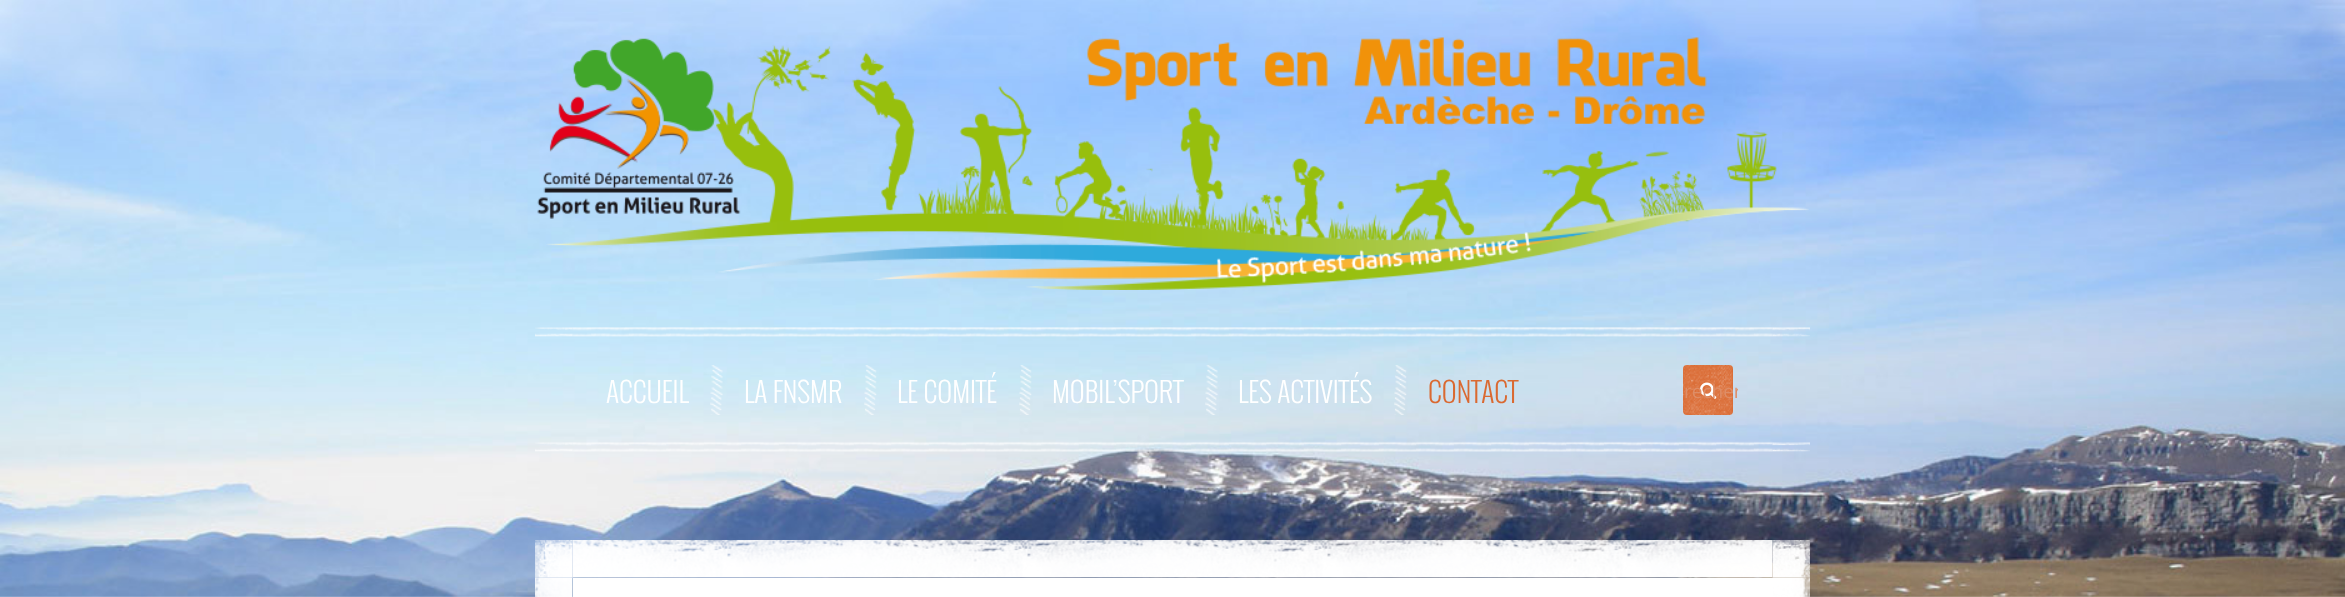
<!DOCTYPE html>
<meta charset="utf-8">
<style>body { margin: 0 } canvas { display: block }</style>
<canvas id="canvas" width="2345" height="597"></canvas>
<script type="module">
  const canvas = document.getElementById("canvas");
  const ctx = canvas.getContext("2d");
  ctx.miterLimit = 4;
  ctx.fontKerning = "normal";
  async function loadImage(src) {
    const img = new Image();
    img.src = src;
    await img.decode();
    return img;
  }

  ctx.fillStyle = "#ffffff";
  ctx.fillRect(0, 0, 2345, 597);
  ctx.drawImage(await loadImage("img1.png"), 0, 0, 2345, 597);
  ctx.drawImage(await loadImage("img2.png"), 537, 37, 1272, 253);
  ctx.drawImage(await loadImage("img3.png"), 535, 327, 1275, 125);
  ctx.font = "300 27.5px Oswald";
  ctx.fillText("ACCUEIL", 606, 403);
  ctx.drawImage(await loadImage("img4.png"), 710, 365, 13, 50);
  ctx.fillText("LA FNSMR", 744, 403);
  ctx.drawImage(await loadImage("img5.png"), 864, 365, 13, 50);
  ctx.fillText("LE COMITÉ", 897, 403);
  ctx.drawImage(await loadImage("img6.png"), 1019, 365, 13, 50);
  ctx.fillText("MOBIL’SPORT", 1052, 403);
  ctx.drawImage(await loadImage("img7.png"), 1205, 365, 13, 50);
  ctx.fillText("LES ACTIVITÉS", 1238, 403);
  ctx.drawImage(await loadImage("img8.png"), 1394, 365, 13, 50);
  ctx.fillStyle = "#da6931";
  ctx.fillText("CONTACT", 1428, 403);
  ctx.beginPath();
  ctx.roundRect(1683, 365, 50, 50, 4);
  ctx.fill();
  ctx.drawImage(await loadImage("img9.png"), 1682, 365, 51, 50);
  ctx.drawImage(await loadImage("img10.png"), 1700, 382, 17, 17);
  ctx.save();
  ctx.beginPath();
  ctx.rect(1684, 378, 54, 25);
  ctx.clip();
  ctx.font = "19px Open Sans";
  ctx.fillStyle = "#de8d66";
  ctx.fillText("recher", 1684, 398);
  ctx.restore();
  ctx.fillStyle = "#ffffff";
  ctx.fillRect(573, 578, 1200, 19);
  ctx.drawImage(await loadImage("img11.png"), 535, 540, 1275, 57);
</script>
